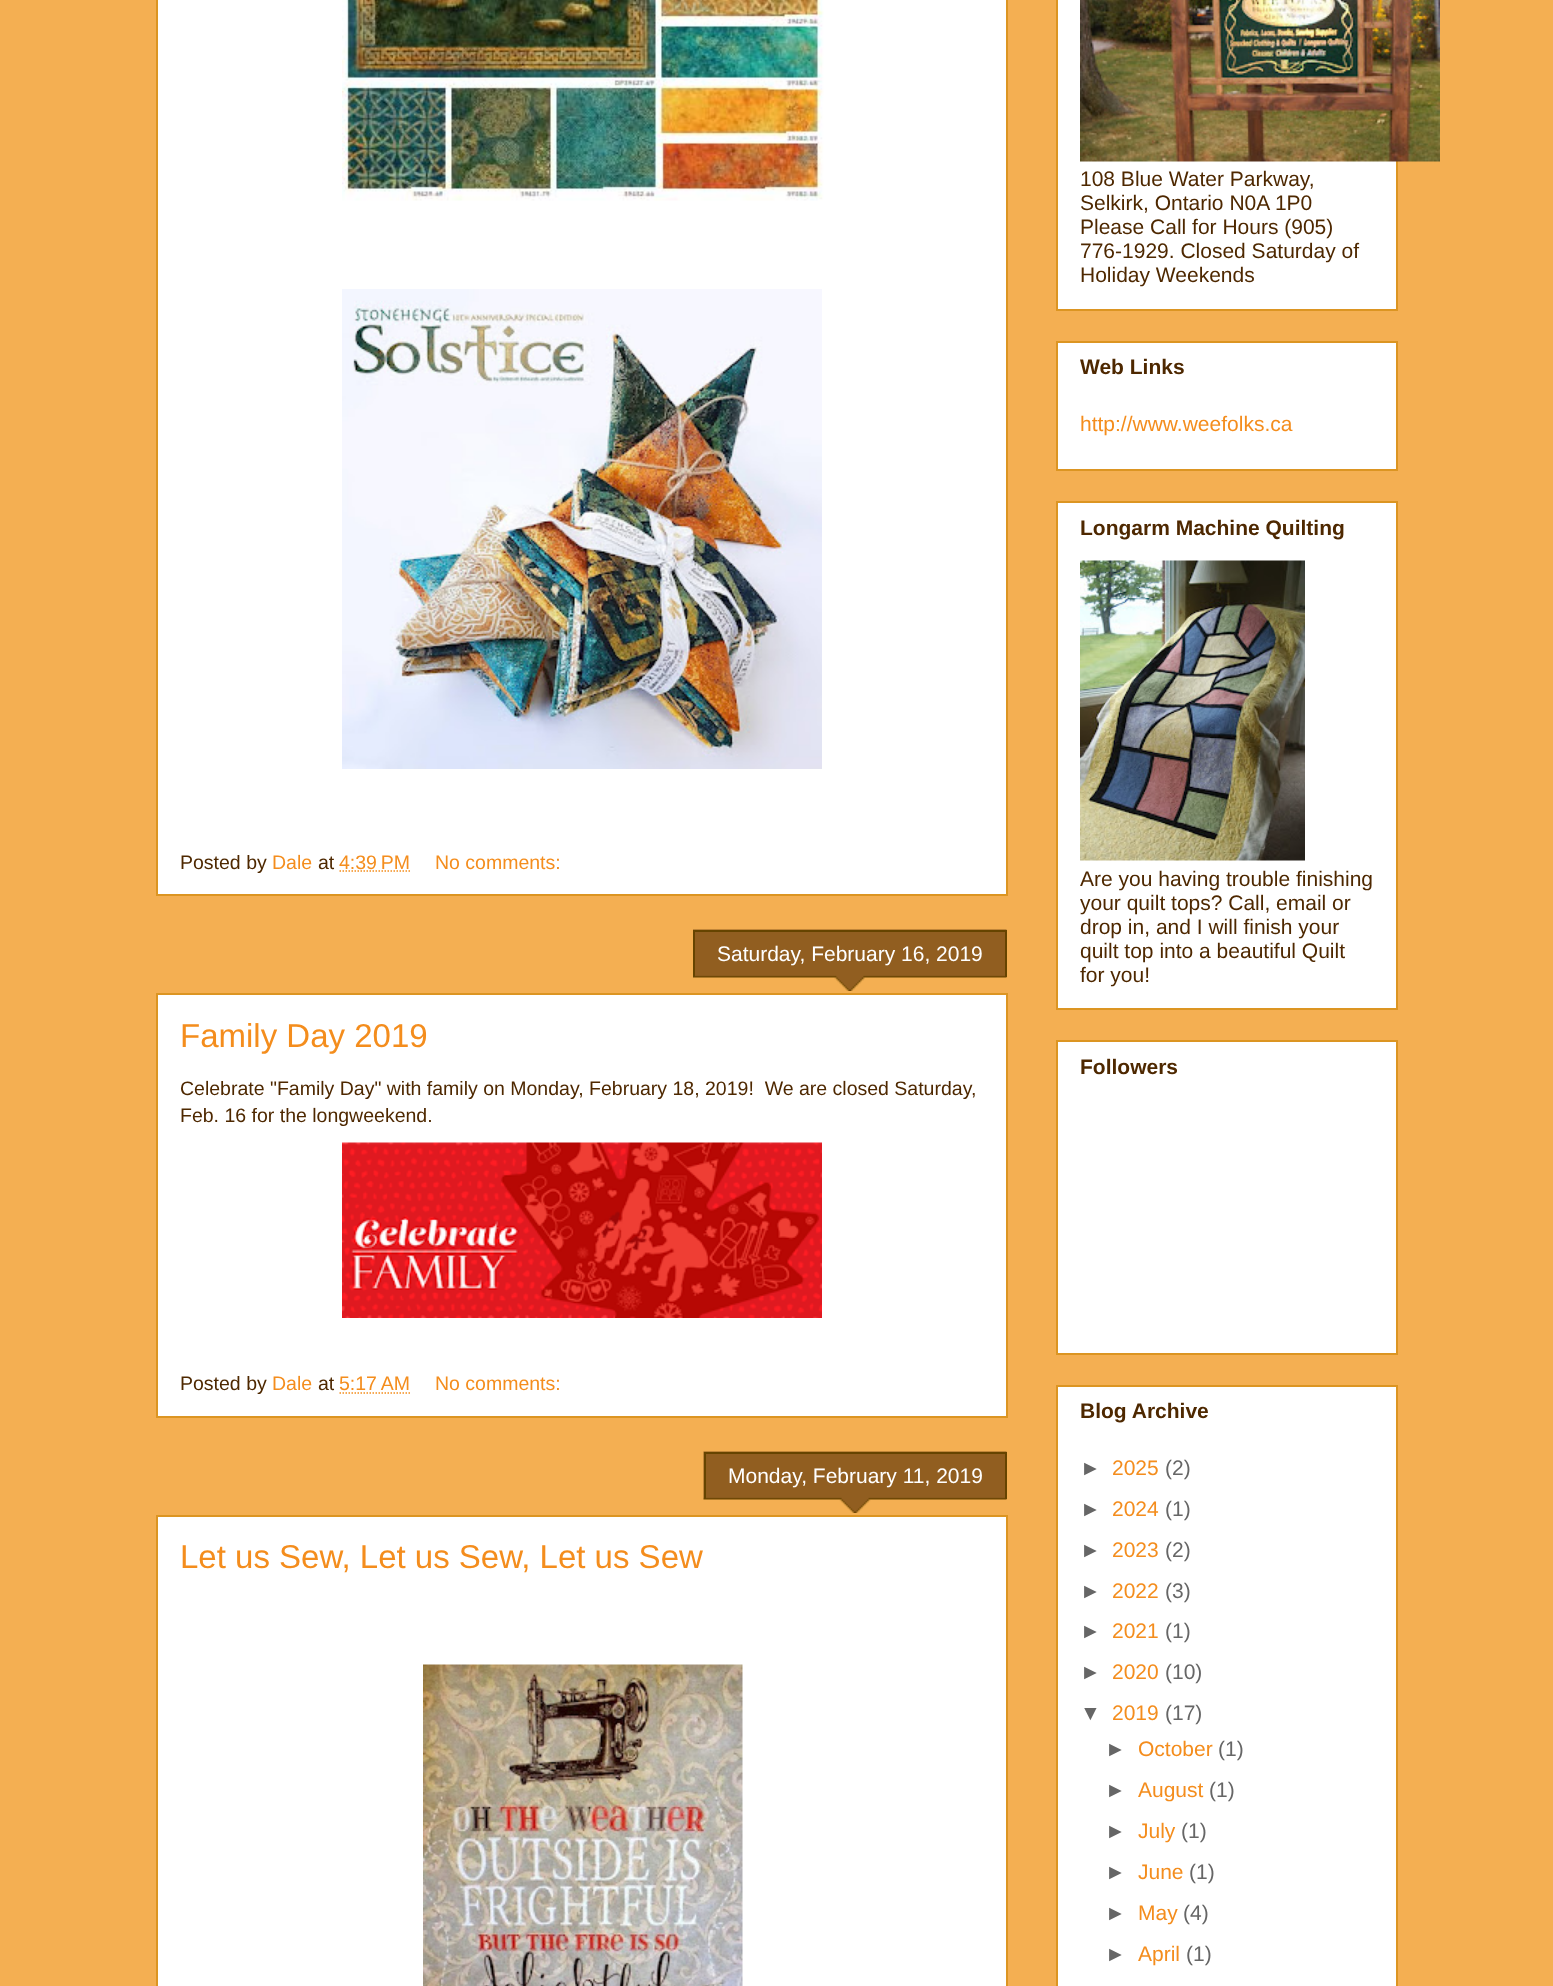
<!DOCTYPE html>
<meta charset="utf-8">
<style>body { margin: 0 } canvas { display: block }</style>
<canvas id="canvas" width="1553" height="1986"></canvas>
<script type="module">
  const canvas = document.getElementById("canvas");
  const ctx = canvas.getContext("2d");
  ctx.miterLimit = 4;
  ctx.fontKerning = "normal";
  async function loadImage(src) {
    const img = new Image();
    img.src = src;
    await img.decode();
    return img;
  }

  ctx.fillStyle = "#f4af52";
  ctx.fillRect(0, 0, 1553, 1986);
  ctx.fillStyle = "#ffffff";
  ctx.beginPath();
  ctx.rect(157, -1, 850, 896);
  ctx.fill();
  ctx.strokeStyle = "#dc9522";
  ctx.lineWidth = 2;
  ctx.stroke();
  ctx.drawImage(await loadImage("img1.png"), 342, 0, 482, 201);
  ctx.drawImage(await loadImage("img2.png"), 342, 289, 480, 480);
  ctx.font = "19.5px Liberation Sans";
  ctx.fillStyle = "#4e2800";
  ctx.fillText("Posted by", 180, 869);
  ctx.fillStyle = "#f48d1d";
  ctx.fillText("Dale", 272, 869);
  ctx.fillStyle = "#4e2800";
  ctx.fillText("at", 318, 869);
  ctx.fillStyle = "#f48d1d";
  ctx.fillText("4:39 PM", 339, 869);
  ctx.beginPath();
  ctx.moveTo(339.5, 871);
  ctx.lineTo(410.5, 871);
  ctx.strokeStyle = "#f48d1d";
  ctx.lineWidth = 1.5;
  ctx.setLineDash([1.5, 1.5]);
  ctx.stroke();
  ctx.fillText("No comments:", 435, 869);
  ctx.fillStyle = "#ffffff";
  ctx.beginPath();
  ctx.rect(157, 994, 850, 423);
  ctx.fill();
  ctx.strokeStyle = "#dc9522";
  ctx.lineWidth = 2;
  ctx.setLineDash([]);
  ctx.stroke();
  ctx.drawImage(await loadImage("img3.png"), 693, 929, 314, 62);
  ctx.fillStyle = "#664400";
  ctx.fillRect(693, 930, 314, 2);
  ctx.fillRect(1005, 932, 2, 45);
  ctx.fillRect(693, 932, 2, 45);
  ctx.font = "21px Liberation Sans";
  ctx.fillStyle = "#ffffff";
  ctx.fillText("Saturday, February 16, 2019", 717, 961);
  ctx.font = "33px Liberation Sans";
  ctx.fillStyle = "#f48d1d";
  ctx.fillText("Family Day 2019", 180, 1047);
  ctx.font = "19.5px Liberation Sans";
  ctx.fillStyle = "#4e2800";
  ctx.fillText("Celebrate \"Family Day\" with family on Monday, February 18, 2019!  We are closed Saturday,", 180, 1095);
  ctx.fillText("Feb. 16 for the longweekend.", 180, 1122);
  ctx.drawImage(await loadImage("img4.png"), 342, 1142, 480, 176);
  ctx.fillText("Posted by", 180, 1390);
  ctx.fillStyle = "#f48d1d";
  ctx.fillText("Dale", 272, 1390);
  ctx.fillStyle = "#4e2800";
  ctx.fillText("at", 318, 1390);
  ctx.fillStyle = "#f48d1d";
  ctx.fillText("5:17 AM", 339, 1390);
  ctx.beginPath();
  ctx.moveTo(339.5, 1393);
  ctx.lineTo(410.5, 1393);
  ctx.strokeStyle = "#f48d1d";
  ctx.lineWidth = 1.5;
  ctx.setLineDash([1.5, 1.5]);
  ctx.stroke();
  ctx.fillText("No comments:", 435, 1390);
  ctx.fillStyle = "#ffffff";
  ctx.beginPath();
  ctx.rect(157, 1516, 850, 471);
  ctx.fill();
  ctx.strokeStyle = "#dc9522";
  ctx.lineWidth = 2;
  ctx.setLineDash([]);
  ctx.stroke();
  ctx.drawImage(await loadImage("img5.png"), 703, 1451, 304, 62);
  ctx.fillStyle = "#664400";
  ctx.fillRect(704, 1452, 303, 2);
  ctx.fillRect(1005, 1454, 2, 45);
  ctx.fillRect(704, 1454, 2, 45);
  ctx.font = "21px Liberation Sans";
  ctx.fillStyle = "#ffffff";
  ctx.fillText("Monday, February 11, 2019", 728, 1483);
  ctx.font = "33px Liberation Sans";
  ctx.fillStyle = "#f48d1d";
  ctx.fillText("Let us Sew, Let us Sew, Let us Sew", 180, 1568);
  ctx.drawImage(await loadImage("img6.png"), 423, 1664, 320, 322);
  ctx.fillStyle = "#ffffff";
  ctx.beginPath();
  ctx.rect(1057, -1, 340, 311);
  ctx.fill();
  ctx.stroke();
  ctx.drawImage(await loadImage("img7.png"), 1080, 0, 360, 162);
  ctx.font = "21px Liberation Sans";
  ctx.fillStyle = "#4e2800";
  ctx.fillText("108 Blue Water Parkway,", 1080, 186);
  ctx.fillText("Selkirk, Ontario N0A 1P0", 1080, 210);
  ctx.fillText("Please Call for Hours (905)", 1080, 234);
  ctx.fillText("776-1929. Closed Saturday of", 1080, 258);
  ctx.fillText("Holiday Weekends", 1080, 282);
  ctx.fillStyle = "#ffffff";
  ctx.beginPath();
  ctx.rect(1057, 342, 340, 128);
  ctx.fill();
  ctx.stroke();
  ctx.font = "bold 21px Liberation Sans";
  ctx.fillStyle = "#4e2800";
  ctx.fillText("Web Links", 1080, 374);
  ctx.font = "21px Liberation Sans";
  ctx.fillStyle = "#f48d1d";
  ctx.fillText("http://www.weefolks.ca", 1080, 431);
  ctx.fillStyle = "#ffffff";
  ctx.beginPath();
  ctx.rect(1057, 502, 340, 507);
  ctx.fill();
  ctx.stroke();
  ctx.font = "bold 21px Liberation Sans";
  ctx.fillStyle = "#4e2800";
  ctx.fillText("Longarm Machine Quilting", 1080, 535);
  ctx.drawImage(await loadImage("img8.png"), 1080, 560, 225, 301);
  ctx.font = "21px Liberation Sans";
  ctx.fillText("Are you having trouble finishing", 1080, 886);
  ctx.fillText("your quilt tops? Call, email or", 1080, 910);
  ctx.fillText("drop in, and I will finish your", 1080, 934);
  ctx.fillText("quilt top into a beautiful Quilt", 1080, 958);
  ctx.fillText("for you!", 1080, 982);
  ctx.fillStyle = "#ffffff";
  ctx.beginPath();
  ctx.rect(1057, 1041, 340, 313);
  ctx.fill();
  ctx.stroke();
  ctx.font = "bold 21px Liberation Sans";
  ctx.fillStyle = "#4e2800";
  ctx.fillText("Followers", 1080, 1074);
  ctx.fillStyle = "#ffffff";
  ctx.beginPath();
  ctx.rect(1057, 1386, 340, 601);
  ctx.fill();
  ctx.stroke();
  ctx.fillStyle = "#4e2800";
  ctx.fillText("Blog Archive", 1080, 1418);
  ctx.font = "21px Liberation Sans";
  ctx.fillStyle = "#666666";
  ctx.fillText("►", 1080, 1475);
  ctx.fillStyle = "#f48d1d";
  ctx.fillText("2025", 1112, 1475);
  ctx.fillStyle = "#666666";
  ctx.fillText("(2)", 1165, 1475);
  ctx.fillText("►", 1080, 1516);
  ctx.fillStyle = "#f48d1d";
  ctx.fillText("2024", 1112, 1516);
  ctx.fillStyle = "#666666";
  ctx.fillText("(1)", 1165, 1516);
  ctx.fillText("►", 1080, 1557);
  ctx.fillStyle = "#f48d1d";
  ctx.fillText("2023", 1112, 1557);
  ctx.fillStyle = "#666666";
  ctx.fillText("(2)", 1165, 1557);
  ctx.fillText("►", 1080, 1598);
  ctx.fillStyle = "#f48d1d";
  ctx.fillText("2022", 1112, 1598);
  ctx.fillStyle = "#666666";
  ctx.fillText("(3)", 1165, 1598);
  ctx.fillText("►", 1080, 1638);
  ctx.fillStyle = "#f48d1d";
  ctx.fillText("2021", 1112, 1638);
  ctx.fillStyle = "#666666";
  ctx.fillText("(1)", 1165, 1638);
  ctx.fillText("►", 1080, 1679);
  ctx.fillStyle = "#f48d1d";
  ctx.fillText("2020", 1112, 1679);
  ctx.fillStyle = "#666666";
  ctx.fillText("(10)", 1165, 1679);
  ctx.fillText("▼", 1080, 1720);
  ctx.fillStyle = "#f48d1d";
  ctx.fillText("2019", 1112, 1720);
  ctx.fillStyle = "#666666";
  ctx.fillText("(17)", 1165, 1720);
  ctx.fillText("►", 1105, 1756);
  ctx.fillStyle = "#f48d1d";
  ctx.fillText("October", 1138, 1756);
  ctx.fillStyle = "#666666";
  ctx.fillText("(1)", 1218, 1756);
  ctx.fillText("►", 1105, 1797);
  ctx.fillStyle = "#f48d1d";
  ctx.fillText("August", 1138, 1797);
  ctx.fillStyle = "#666666";
  ctx.fillText("(1)", 1209, 1797);
  ctx.fillText("►", 1105, 1838);
  ctx.fillStyle = "#f48d1d";
  ctx.fillText("July", 1138, 1838);
  ctx.fillStyle = "#666666";
  ctx.fillText("(1)", 1181, 1838);
  ctx.fillText("►", 1105, 1879);
  ctx.fillStyle = "#f48d1d";
  ctx.fillText("June", 1138, 1879);
  ctx.fillStyle = "#666666";
  ctx.fillText("(1)", 1189, 1879);
  ctx.fillText("►", 1105, 1920);
  ctx.fillStyle = "#f48d1d";
  ctx.fillText("May", 1138, 1920);
  ctx.fillStyle = "#666666";
  ctx.fillText("(4)", 1183, 1920);
  ctx.fillText("►", 1105, 1961);
  ctx.fillStyle = "#f48d1d";
  ctx.fillText("April", 1138, 1961);
  ctx.fillStyle = "#666666";
  ctx.fillText("(1)", 1186, 1961);
</script>
